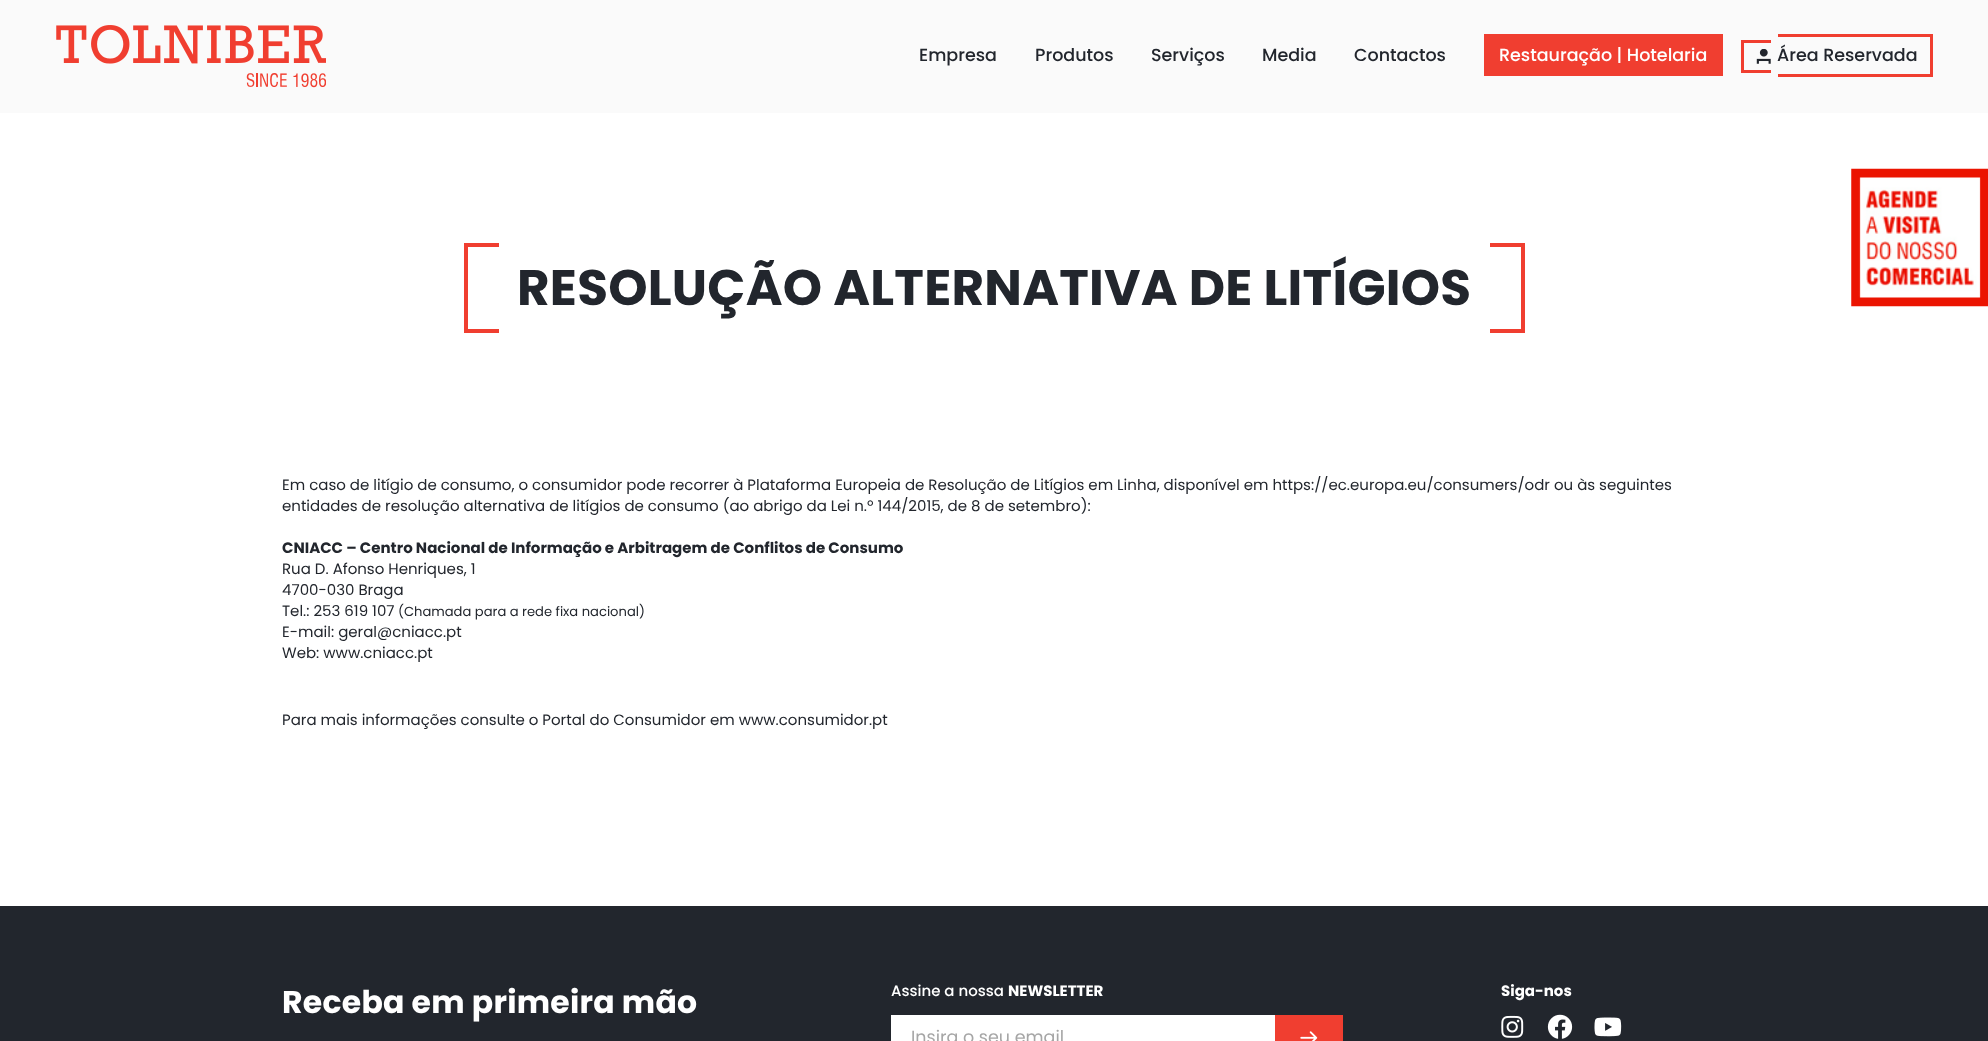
<!DOCTYPE html>
<meta charset="utf-8">
<style>body { margin: 0 } canvas { display: block }</style>
<canvas id="canvas" width="1988" height="1041"></canvas>
<script type="module">
  const canvas = document.getElementById("canvas");
  const ctx = canvas.getContext("2d");
  ctx.miterLimit = 4;
  ctx.fontKerning = "normal";
  async function loadImage(src) {
    const img = new Image();
    img.src = src;
    await img.decode();
    return img;
  }

  ctx.fillStyle = "#ffffff";
  ctx.fillRect(0, 0, 1988, 1041);
  ctx.fillStyle = "#fafafa";
  ctx.fillRect(0, 0, 1988, 113);
  ctx.drawImage(await loadImage("img1.png"), 56, 25, 270, 63);
  ctx.font = "500 17.5px Poppins";
  ctx.fillStyle = "#22262d";
  ctx.fillText("Empresa", 919, 61);
  ctx.fillText("Produtos", 1035, 61);
  ctx.fillText("Serviços", 1151, 61);
  ctx.fillText("Media", 1262, 61);
  ctx.fillText("Contactos", 1354, 61);
  ctx.fillStyle = "#f03e30";
  ctx.fillRect(1484, 34, 239, 42);
  ctx.fillStyle = "#ffffff";
  ctx.fillText("Restauração | Hotelaria", 1499, 61);
  ctx.drawImage(await loadImage("img2.png"), 1756, 49, 15, 15);
  ctx.fillStyle = "#22262d";
  ctx.fillText("Área Reservada", 1777, 61);
  ctx.fillStyle = "#f03e30";
  ctx.fillRect(1741, 40, 30, 3);
  ctx.fillRect(1741, 70, 30, 3);
  ctx.fillRect(1741, 40, 3, 33);
  ctx.fillRect(1778, 34, 155, 3);
  ctx.fillRect(1930, 34, 3, 42);
  ctx.fillRect(1778, 74, 155, 3);
  ctx.fillRect(1521, 243, 4, 90);
  ctx.fillRect(464, 243, 4, 90);
  ctx.fillRect(468, 243, 31, 4);
  ctx.fillRect(468, 329, 31, 4);
  ctx.letterSpacing = "0.25px";
  ctx.font = "bold 50px Poppins";
  ctx.fillStyle = "#22262d";
  ctx.fillText("RESOLUÇÃO ALTERNATIVA DE LITÍGIOS", 517, 305);
  ctx.fillStyle = "#f03e30";
  ctx.fillRect(1490, 243, 31, 4);
  ctx.fillRect(1490, 329, 31, 4);
  ctx.drawImage(await loadImage("img3.png"), 1851, 168, 137, 139);
  ctx.letterSpacing = "0px";
  ctx.font = "15px Poppins";
  ctx.fillStyle = "#22262d";
  ctx.fillText("Em caso de litígio de consumo, o consumidor pode recorrer à Plataforma Europeia de Resolução de Litígios em Linha, disponível em https://ec.europa.eu/consumers/odr ou às seguintes", 282, 490);
  ctx.fillText("entidades de resolução alternativa de litígios de consumo (ao abrigo da Lei n.º 144/2015, de 8 de setembro):", 282, 511);
  ctx.font = "bold 15px Poppins";
  ctx.fillText("CNIACC – Centro Nacional de Informação e Arbitragem de Conflitos de Consumo", 282, 553);
  ctx.font = "15px Poppins";
  ctx.fillText("Rua D. Afonso Henriques, 1", 282, 574);
  ctx.fillText("4700-030 Braga", 282, 595);
  ctx.fillText("Tel.: 253 619 107", 282, 616);
  ctx.font = "13.1px Poppins";
  ctx.fillText("(Chamada para a rede fixa nacional)", 398, 616);
  ctx.font = "15px Poppins";
  ctx.fillText("E-mail: geral@cniacc.pt", 282, 637);
  ctx.fillText("Web: www.cniacc.pt", 282, 658);
  ctx.fillText("Para mais informações consulte o Portal do Consumidor em www.consumidor.pt", 282, 725);
  ctx.fillRect(0, 906, 1988, 135);
  ctx.letterSpacing = "0.25px";
  ctx.font = "bold 31.5px Poppins";
  ctx.fillStyle = "#ffffff";
  ctx.fillText("Receba em primeira mão", 282, 1013);
  ctx.letterSpacing = "0px";
  ctx.font = "500 15px Poppins";
  ctx.fillText("Assine a nossa", 891, 996);
  ctx.font = "bold 15px Poppins";
  ctx.fillText("NEWSLETTER", 1008, 996);
  ctx.fillRect(891, 1015, 384, 26);
  ctx.font = "17.5px Poppins";
  ctx.fillStyle = "#a6a6a6";
  ctx.fillText("Insira o seu email", 911, 1043);
  ctx.fillStyle = "#f03e30";
  ctx.fillRect(1275, 1015, 68, 26);
  ctx.drawImage(await loadImage("img4.png"), 1300, 1031, 18, 10);
  ctx.font = "bold 15px Poppins";
  ctx.fillStyle = "#ffffff";
  ctx.fillText("Siga-nos", 1501, 996);
  ctx.drawImage(await loadImage("img5.png"), 1501, 1015, 23, 23);
  ctx.drawImage(await loadImage("img6.png"), 1547, 1014, 26, 25);
  ctx.drawImage(await loadImage("img7.png"), 1594, 1017, 28, 20);
</script>
